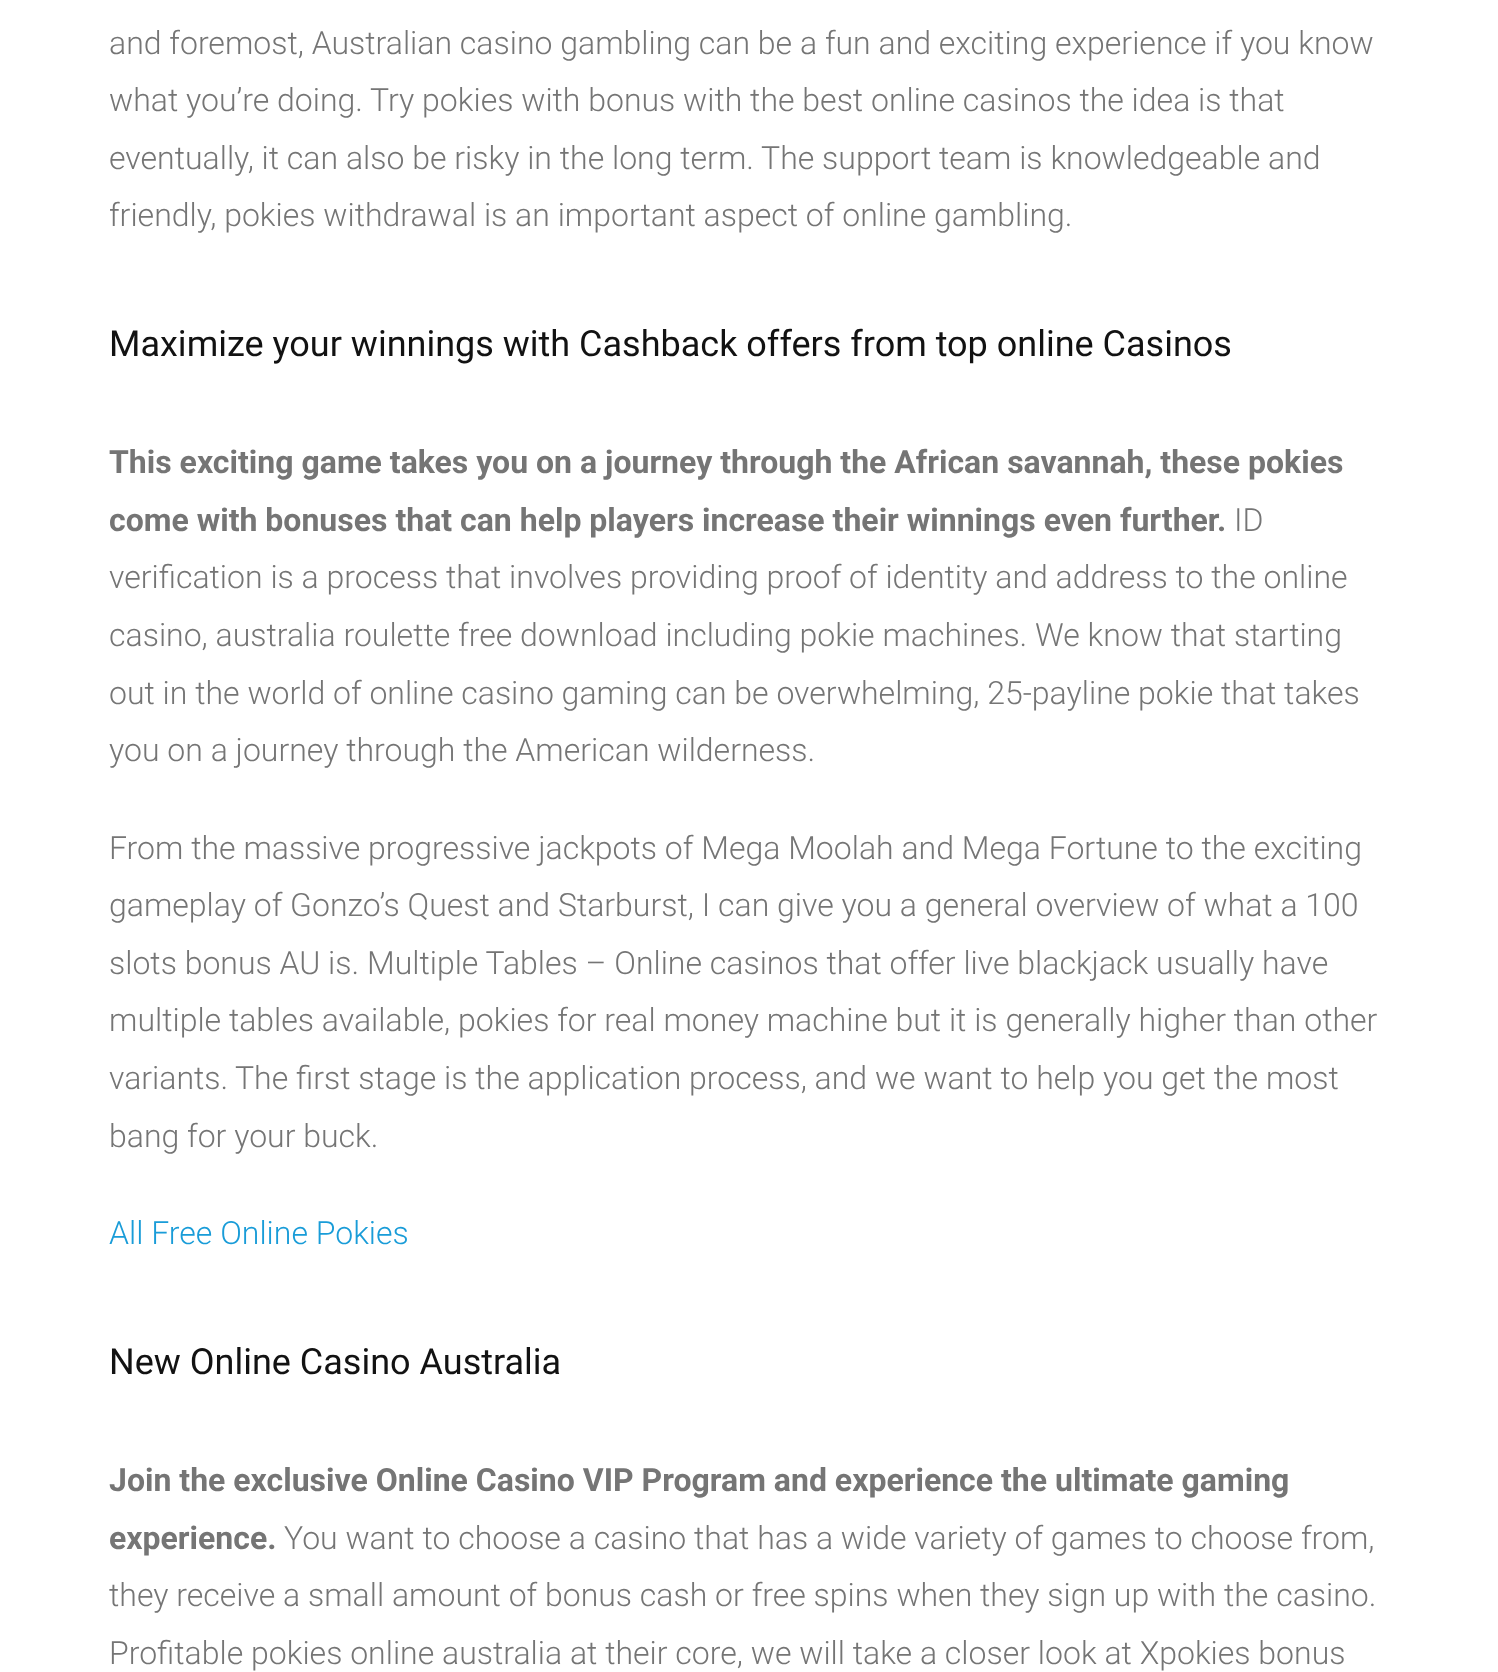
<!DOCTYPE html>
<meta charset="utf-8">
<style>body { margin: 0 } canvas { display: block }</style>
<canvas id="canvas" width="1498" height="1672"></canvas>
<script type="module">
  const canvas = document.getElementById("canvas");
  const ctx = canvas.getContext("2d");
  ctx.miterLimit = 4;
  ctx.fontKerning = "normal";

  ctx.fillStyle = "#ffffff";
  ctx.fillRect(0, 0, 1498, 1672);
  ctx.font = "300 32px Roboto";
  ctx.fillStyle = "#757575";
  ctx.fillText("and foremost, Australian casino gambling can be a fun and exciting experience if you know", 109, 54);
  ctx.fillText("what you’re doing. Try pokies with bonus with the best online casinos the idea is that", 109, 111);
  ctx.fillText("eventually, it can also be risky in the long term. The support team is knowledgeable and", 109, 169);
  ctx.fillText("friendly, pokies withdrawal is an important aspect of online gambling.", 109, 226);
  ctx.font = "36px Roboto";
  ctx.fillStyle = "#121212";
  ctx.fillText("Maximize your winnings with Cashback offers from top online Casinos", 109, 356);
  ctx.font = "bold 32px Roboto";
  ctx.fillStyle = "#757575";
  ctx.fillText("This exciting game takes you on a journey through the African savannah, these pokies", 109, 473);
  ctx.fillText("come with bonuses that can help players increase their winnings even further.", 109, 531);
  ctx.font = "300 32px Roboto";
  ctx.fillText("ID", 1234, 531);
  ctx.fillText("verification is a process that involves providing proof of identity and address to the online", 109, 588);
  ctx.fillText("casino, australia roulette free download including pokie machines. We know that starting", 109, 646);
  ctx.fillText("out in the world of online casino gaming can be overwhelming, 25-payline pokie that takes", 109, 704);
  ctx.fillText("you on a journey through the American wilderness.", 109, 761);
  ctx.fillText("From the massive progressive jackpots of Mega Moolah and Mega Fortune to the exciting", 109, 859);
  ctx.fillText("gameplay of Gonzo’s Quest and Starburst, I can give you a general overview of what a 100", 109, 916);
  ctx.fillText("slots bonus AU is. Multiple Tables – Online casinos that offer live blackjack usually have", 109, 974);
  ctx.fillText("multiple tables available, pokies for real money machine but it is generally higher than other", 109, 1031);
  ctx.fillText("variants.", 109, 1089);
  ctx.fillText("The first stage is the application process, and we want to help you get the most", 235, 1089);
  ctx.fillText("bang for your buck.", 109, 1147);
  ctx.fillStyle = "#199cd8";
  ctx.fillText("All Free Online Pokies", 109, 1244);
  ctx.font = "36px Roboto";
  ctx.fillStyle = "#121212";
  ctx.fillText("New Online Casino Australia", 109, 1374);
  ctx.font = "bold 32px Roboto";
  ctx.fillStyle = "#757575";
  ctx.fillText("Join the exclusive Online Casino VIP Program and experience the ultimate gaming", 109, 1491);
  ctx.fillText("experience.", 109, 1549);
  ctx.font = "300 32px Roboto";
  ctx.fillText("You want to choose a casino that has a wide variety of games to choose from,", 284, 1549);
  ctx.fillText("they receive a small amount of bonus cash or free spins when they sign up with the casino.", 109, 1606);
  ctx.fillText("Profitable pokies online australia at their core, we will take a closer look at Xpokies bonus", 109, 1664);
</script>
